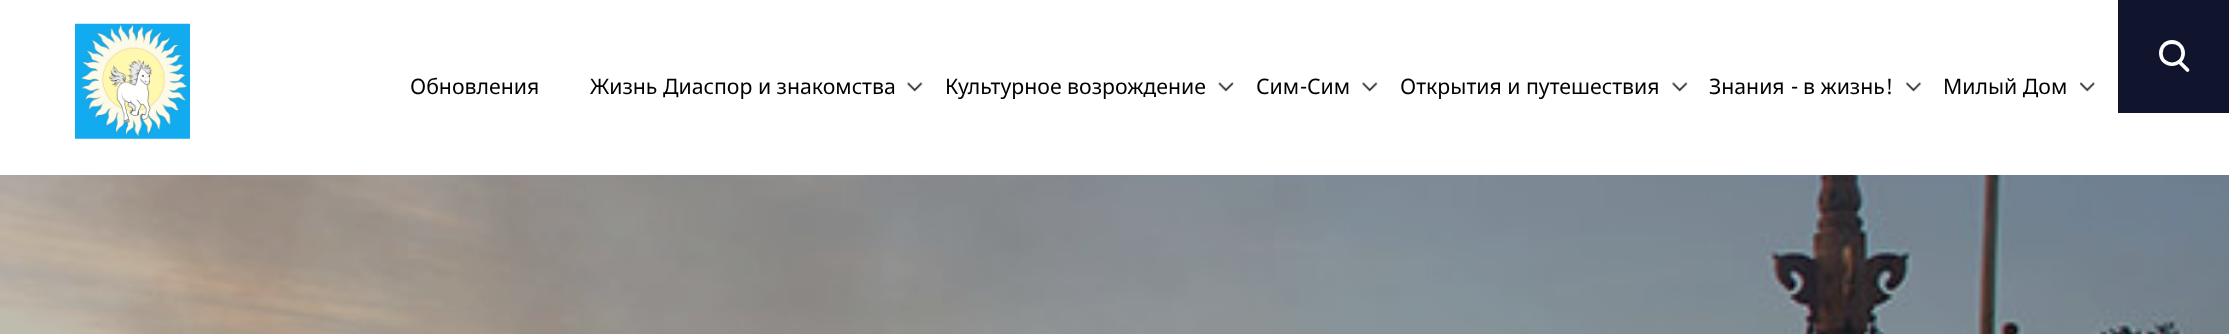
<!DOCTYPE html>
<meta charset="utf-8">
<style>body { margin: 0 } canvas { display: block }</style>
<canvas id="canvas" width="2229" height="334"></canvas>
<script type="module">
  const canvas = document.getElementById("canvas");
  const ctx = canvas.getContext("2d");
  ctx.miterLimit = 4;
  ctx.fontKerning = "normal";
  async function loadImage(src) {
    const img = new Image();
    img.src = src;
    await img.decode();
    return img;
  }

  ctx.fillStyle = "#ffffff";
  ctx.fillRect(0, 0, 2229, 334);
  ctx.drawImage(await loadImage("img1.png"), 75, 23, 115, 116);
  ctx.font = "21.25px Noto Sans";
  ctx.fillStyle = "#000000";
  ctx.fillText("Обновления", 410, 94);
  ctx.fillText("Жизнь Диаспор и знакомства", 590, 94);
  ctx.drawImage(await loadImage("img2.png"), 907, 82, 16, 10);
  ctx.fillText("Культурное возрождение", 945, 94);
  ctx.drawImage(await loadImage("img3.png"), 1218, 82, 16, 10);
  ctx.fillText("Сим", 1256, 94);
  ctx.font = "21.25px 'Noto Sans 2'";
  ctx.fillText("-", 1300, 94);
  ctx.font = "21.25px Noto Sans";
  ctx.fillText("Сим", 1307, 94);
  ctx.drawImage(await loadImage("img2.png"), 1362, 82, 16, 10);
  ctx.fillText("Открытия и путешествия", 1400, 94);
  ctx.drawImage(await loadImage("img2.png"), 1672, 82, 16, 10);
  ctx.fillText("Знания", 1709, 94);
  ctx.font = "21.25px 'Noto Sans 2'";
  ctx.fillText("-", 1791, 94);
  ctx.font = "21.25px Noto Sans";
  ctx.fillText("в жизнь", 1803, 94);
  ctx.font = "21.25px 'Noto Sans 2'";
  ctx.fillText("!", 1885, 94);
  ctx.drawImage(await loadImage("img4.png"), 1906, 82, 16, 10);
  ctx.font = "21.25px Noto Sans";
  ctx.fillText("Милый Дом", 1943, 94);
  ctx.drawImage(await loadImage("img5.png"), 2080, 82, 15, 10);
  ctx.fillStyle = "#11142d";
  ctx.fillRect(2118, 0, 111, 113);
  ctx.save();
  ctx.beginPath();
  ctx.rect(2159, 40, 31, 33);
  ctx.clip();
  ctx.beginPath();
  ctx.moveTo(2159, 53);
  ctx.bezierCurveTo(2159, 46, 2164.5, 40, 2172, 40);
  ctx.bezierCurveTo(2179, 40, 2185, 46, 2185, 53);
  ctx.bezierCurveTo(2185, 60.5, 2179, 66, 2172, 66);
  ctx.bezierCurveTo(2164.5, 66, 2159, 60.5, 2159, 53);
  ctx.closePath();
  ctx.clip();
  ctx.beginPath();
  ctx.moveTo(2159, 53);
  ctx.bezierCurveTo(2159, 36, 2185, 36, 2185, 53);
  ctx.bezierCurveTo(2185, 70.5, 2159, 70.5, 2159, 53);
  ctx.closePath();
  ctx.strokeStyle = "#ffffff";
  ctx.lineWidth = 7.5;
  ctx.lineCap = "round";
  ctx.stroke();
  ctx.restore();
  ctx.beginPath();
  ctx.moveTo(2179.5, 62);
  ctx.lineTo(2187.5, 70);
  ctx.strokeStyle = "#ffffff";
  ctx.lineWidth = 3.8;
  ctx.lineCap = "round";
  ctx.stroke();
  ctx.drawImage(await loadImage("img6.png"), 0, 175, 2229, 159);
</script>
